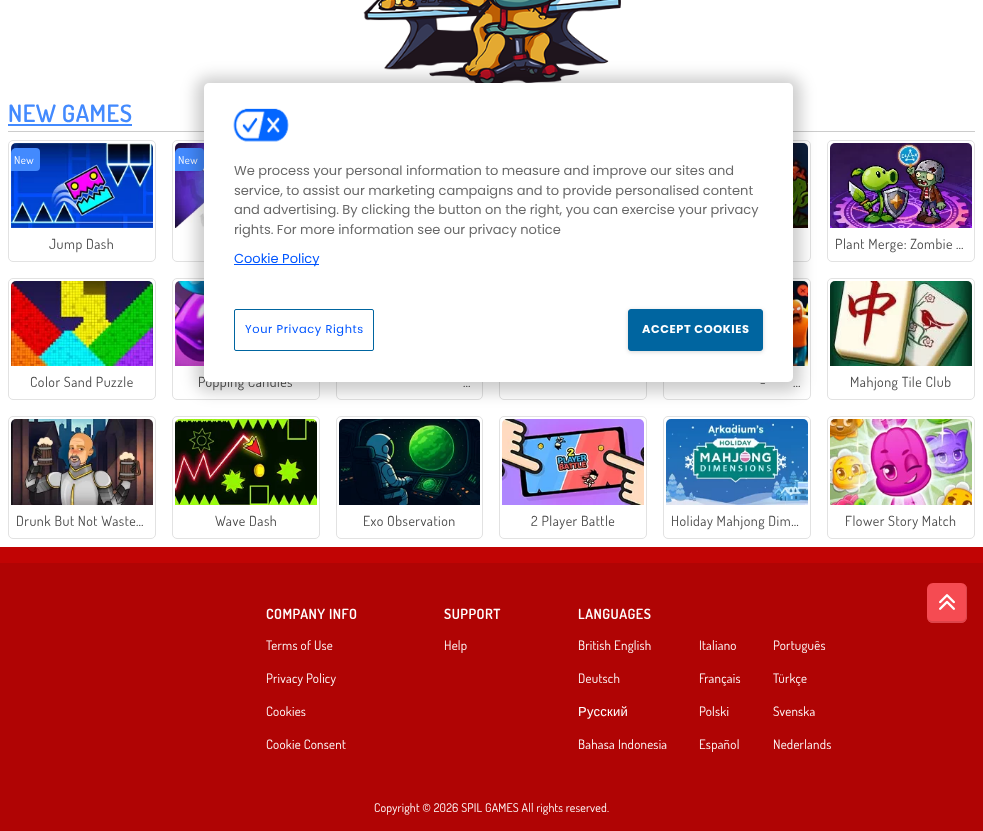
<!DOCTYPE html>
<meta charset="utf-8">
<style>body { margin: 0 } canvas { display: block }</style>
<canvas id="canvas" width="983" height="831"></canvas>
<script type="module">
  const canvas = document.getElementById("canvas");
  const ctx = canvas.getContext("2d");
  ctx.miterLimit = 4;
  ctx.fontKerning = "normal";
  async function loadImage(src) {
    const img = new Image();
    img.src = src;
    await img.decode();
    return img;
  }

  ctx.fillStyle = "#b00404";
  ctx.fillRect(0, 0, 983, 831);
  ctx.fillStyle = "#ffffff";
  ctx.fillRect(0, 0, 983, 547);
  ctx.drawImage(await loadImage("img1.png"), 363, 0, 258, 83);
  ctx.fillStyle = "#cccccc";
  ctx.fillRect(8, 131, 967, 1);
  ctx.letterSpacing = "0.5px";
  ctx.font = "600 24px Dosis";
  ctx.fillStyle = "#438afe";
  ctx.fillText("NEW GAMES", 8, 122);
  ctx.fillRect(8, 124, 124, 2);
  ctx.beginPath();
  ctx.roundRect(8.5, 140.5, 147, 121, 4.5);
  ctx.strokeStyle = "#e2e2e2";
  ctx.stroke();
  ctx.drawImage(await loadImage("img2.png"), 11, 143, 142, 85);
  ctx.beginPath();
  ctx.roundRect(11, 148, 29, 23, [5, 4, 4, 0]);
  ctx.fill();
  ctx.font = "11px Dosis";
  ctx.fillStyle = "#ffffff";
  ctx.fillText("New", 14, 164);
  ctx.font = "14px Dosis";
  ctx.fillStyle = "#4a4a4a";
  ctx.fillText("Jump Dash", 49, 249);
  ctx.beginPath();
  ctx.roundRect(172.5, 140.5, 147, 121, 4.5);
  ctx.stroke();
  ctx.drawImage(await loadImage("img3.png"), 175, 143, 29, 85);
  ctx.fillStyle = "#438afe";
  ctx.beginPath();
  ctx.roundRect(175, 148, 29, 23, [5, 4, 4, 0]);
  ctx.fill();
  ctx.font = "11px Dosis";
  ctx.fillStyle = "#ffffff";
  ctx.fillText("New", 178, 164);
  ctx.beginPath();
  ctx.roundRect(663.5, 140.5, 147, 121, 4.5);
  ctx.stroke();
  ctx.drawImage(await loadImage("img4.png"), 793, 143, 15, 85);
  ctx.beginPath();
  ctx.roundRect(827.5, 140.5, 147, 121, 4.5);
  ctx.stroke();
  ctx.drawImage(await loadImage("img5.png"), 830, 143, 142, 85);
  ctx.font = "14px Dosis";
  ctx.fillStyle = "#4a4a4a";
  ctx.fillText("Plant Merge: Zombie …", 835, 249);
  ctx.beginPath();
  ctx.roundRect(8.5, 278.5, 147, 121, 4.5);
  ctx.stroke();
  ctx.drawImage(await loadImage("img6.png"), 11, 281, 142, 85);
  ctx.fillText("Color Sand Puzzle", 30, 387);
  ctx.beginPath();
  ctx.roundRect(172.5, 278.5, 147, 121, 4.5);
  ctx.stroke();
  ctx.drawImage(await loadImage("img7.png"), 175, 281, 29, 85);
  ctx.fillText("Popping Candies", 198, 387);
  ctx.beginPath();
  ctx.roundRect(336.5, 278.5, 146, 121, 4.5);
  ctx.stroke();
  ctx.fillText("…", 463, 387);
  ctx.beginPath();
  ctx.roundRect(499.5, 278.5, 147, 121, 4.5);
  ctx.stroke();
  ctx.beginPath();
  ctx.roundRect(663.5, 278.5, 147, 121, 4.5);
  ctx.stroke();
  ctx.drawImage(await loadImage("img8.png"), 793, 281, 15, 85);
  ctx.fillText("-", 760, 387);
  ctx.fillText("…", 793, 387);
  ctx.beginPath();
  ctx.roundRect(827.5, 278.5, 147, 121, 4.5);
  ctx.stroke();
  ctx.drawImage(await loadImage("img9.png"), 830, 281, 142, 85);
  ctx.fillText("Mahjong Tile Club", 850, 387);
  ctx.beginPath();
  ctx.roundRect(8.5, 416.5, 147, 122, 4.5);
  ctx.stroke();
  ctx.drawImage(await loadImage("img10.png"), 11, 419, 142, 86);
  ctx.fillText("Drunk But Not Waste…", 16, 526);
  ctx.beginPath();
  ctx.roundRect(172.5, 416.5, 147, 122, 4.5);
  ctx.stroke();
  ctx.drawImage(await loadImage("img11.png"), 175, 419, 142, 86);
  ctx.fillText("Wave Dash", 215, 526);
  ctx.beginPath();
  ctx.roundRect(336.5, 416.5, 146, 122, 4.5);
  ctx.stroke();
  ctx.drawImage(await loadImage("img12.png"), 339, 419, 141, 86);
  ctx.fillText("Exo Observation", 363, 526);
  ctx.beginPath();
  ctx.roundRect(499.5, 416.5, 147, 122, 4.5);
  ctx.stroke();
  ctx.drawImage(await loadImage("img13.png"), 502, 419, 142, 86);
  ctx.fillText("2 Player Battle", 531, 526);
  ctx.beginPath();
  ctx.roundRect(663.5, 416.5, 147, 122, 4.5);
  ctx.stroke();
  ctx.drawImage(await loadImage("img14.png"), 666, 419, 142, 86);
  ctx.fillText("Holiday Mahjong Dim…", 671, 526);
  ctx.beginPath();
  ctx.roundRect(827.5, 416.5, 147, 122, 4.5);
  ctx.stroke();
  ctx.drawImage(await loadImage("img15.png"), 830, 419, 142, 86);
  ctx.fillText("Flower Story Match", 845, 526);
  ctx.fillStyle = "#c10404";
  ctx.fillRect(0, 547, 983, 16);
  ctx.fillStyle = "#f54b52";
  ctx.beginPath();
  ctx.roundRect(927, 583, 40, 40, 6);
  ctx.fill();
  ctx.fillStyle = "#dd444a";
  ctx.beginPath();
  ctx.moveTo(933, 583);
  ctx.lineTo(961, 583);
  ctx.bezierCurveTo(964, 583, 967, 586, 967, 589);
  ctx.lineTo(967, 617);
  ctx.bezierCurveTo(967, 620, 964, 623, 961, 623);
  ctx.lineTo(933, 623);
  ctx.bezierCurveTo(930, 623, 927, 620, 927, 617);
  ctx.lineTo(927, 589);
  ctx.bezierCurveTo(927, 586, 930, 583, 933, 583);
  ctx.closePath();
  ctx.moveTo(933, 583);
  ctx.lineTo(961, 583);
  ctx.bezierCurveTo(964, 583, 966, 586, 966, 589);
  ctx.lineTo(966, 617);
  ctx.bezierCurveTo(966, 619, 964, 621, 961, 621);
  ctx.lineTo(933, 621);
  ctx.bezierCurveTo(930, 621, 927, 619, 927, 617);
  ctx.lineTo(927, 589);
  ctx.bezierCurveTo(927, 586, 930, 583, 933, 583);
  ctx.closePath();
  ctx.fill("evenodd");
  ctx.drawImage(await loadImage("img16.png"), 939, 594, 16, 16);
  ctx.font = "600 14px Dosis";
  ctx.fillStyle = "#ffffff";
  ctx.fillText("COMPANY INFO", 266, 619);
  ctx.letterSpacing = "0.25px";
  ctx.font = "13px Dosis";
  ctx.fillText("Terms of Use", 266, 650);
  ctx.fillText("Privacy Policy", 266, 683);
  ctx.fillText("Cookies", 266, 716);
  ctx.fillText("Cookie Consent", 266, 749);
  ctx.letterSpacing = "0.5px";
  ctx.font = "600 14px Dosis";
  ctx.fillText("SUPPORT", 444, 619);
  ctx.letterSpacing = "0.25px";
  ctx.font = "13px Dosis";
  ctx.fillText("Help", 444, 650);
  ctx.letterSpacing = "0.5px";
  ctx.font = "600 14px Dosis";
  ctx.fillText("LANGUAGES", 578, 619);
  ctx.letterSpacing = "0.25px";
  ctx.font = "13px Dosis";
  ctx.fillText("British English", 578, 650);
  ctx.fillText("Italiano", 699, 650);
  ctx.fillText("Português", 773, 650);
  ctx.fillText("Deutsch", 578, 683);
  ctx.fillText("Français", 699, 683);
  ctx.fillText("Türkçe", 773, 683);
  ctx.font = "13px Liberation Sans";
  ctx.fillText("Русский", 578, 716);
  ctx.font = "13px Dosis";
  ctx.fillText("Polski", 699, 716);
  ctx.fillText("Svenska", 773, 716);
  ctx.fillText("Bahasa Indonesia", 578, 749);
  ctx.fillText("Español", 699, 749);
  ctx.fillText("Nederlands", 773, 749);
  ctx.letterSpacing = "0.2px";
  ctx.font = "12px Dosis";
  ctx.fillText("Copyright © 2026 SPIL GAMES All rights reserved.", 374, 812);
  ctx.fillStyle = "rgba(0, 0, 0, 0.2)";
  ctx.filter = "blur(7.5px)";
  ctx.beginPath();
  ctx.roundRect(196, 77, 605, 315, 13);
  ctx.fill();
  ctx.filter = "none";
  ctx.fillStyle = "#ffffff";
  ctx.beginPath();
  ctx.roundRect(204, 83, 589, 299, 5);
  ctx.fill();
  ctx.drawImage(await loadImage("img17.png"), 233, 108, 56, 34);
  ctx.letterSpacing = "0px";
  ctx.font = "13px Poppins";
  ctx.fillStyle = "#696969";
  ctx.fillText("We process your personal information to measure and improve our sites and", 234, 175);
  ctx.fillText("service, to assist our marketing campaigns and to provide personalised content", 234, 195);
  ctx.fillText("and advertising. By clicking the button on the right, you can exercise your privacy", 234, 214);
  ctx.fillText("rights. For more information see our privacy notice", 234, 234);
  ctx.fillStyle = "#0055ff";
  ctx.fillRect(234, 264, 85, 1);
  ctx.fillText("Cookie Policy", 234, 263);
  ctx.beginPath();
  ctx.roundRect(234.5, 309.5, 139, 41, 1.5);
  ctx.strokeStyle = "#0065a0";
  ctx.stroke();
  ctx.letterSpacing = "0.6px";
  ctx.font = "11.4px Poppins";
  ctx.fillText("Your Privacy Rights", 245, 333);
  ctx.fillStyle = "rgba(0, 0, 0, 0.16)";
  ctx.filter = "blur(2px)";
  ctx.beginPath();
  ctx.roundRect(628, 310, 135, 42, 3);
  ctx.fill();
  ctx.filter = "none";
  ctx.fillStyle = "#0065a0";
  ctx.beginPath();
  ctx.roundRect(628.5, 309.5, 134, 41, 2.5);
  ctx.fill();
  ctx.stroke();
  ctx.font = "bold 11.4px Poppins";
  ctx.fillStyle = "#ffffff";
  ctx.fillText("ACCEPT COOKIES", 642, 333);
</script>
